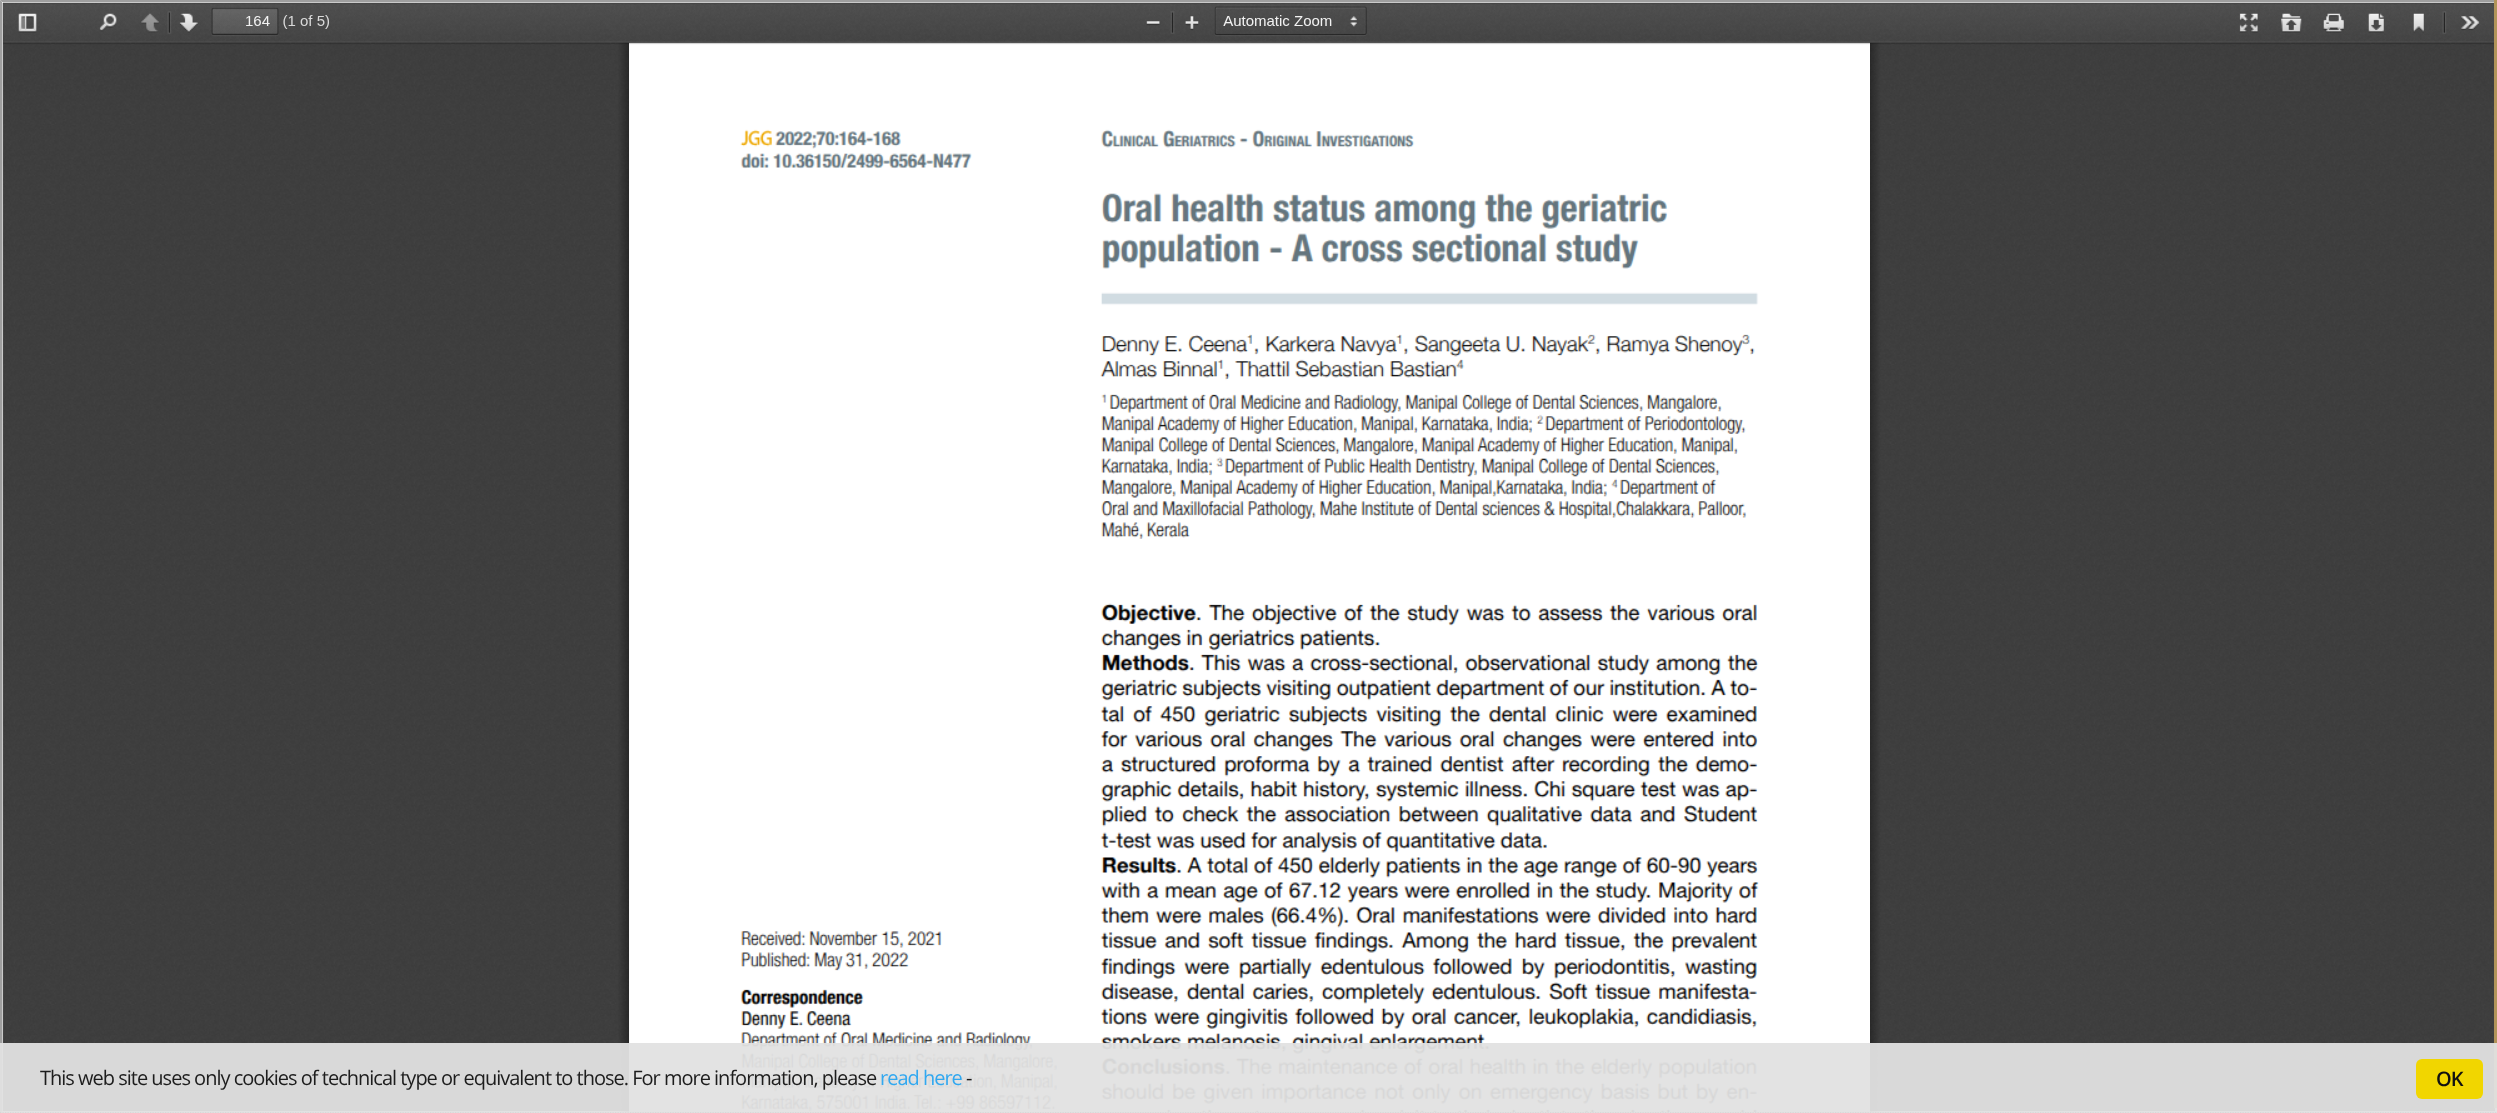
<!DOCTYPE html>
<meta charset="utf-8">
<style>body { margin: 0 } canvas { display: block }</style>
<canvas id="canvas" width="2497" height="1113"></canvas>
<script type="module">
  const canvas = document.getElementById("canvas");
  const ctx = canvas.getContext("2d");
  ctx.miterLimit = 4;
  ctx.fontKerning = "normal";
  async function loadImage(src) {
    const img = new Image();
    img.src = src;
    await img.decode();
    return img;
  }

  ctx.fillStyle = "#fdfdfd";
  ctx.fillRect(0, 0, 2497, 1113);
  ctx.fillStyle = "#9f9f9f";
  ctx.beginPath();
  ctx.moveTo(0, 0);
  ctx.lineTo(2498, 0);
  ctx.lineTo(2495, 2);
  ctx.lineTo(2, 2);
  ctx.closePath();
  ctx.fill();
  ctx.fillStyle = "#eeeeee";
  ctx.beginPath();
  ctx.moveTo(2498, 0);
  ctx.lineTo(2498, 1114);
  ctx.lineTo(2495, 1111);
  ctx.lineTo(2495, 2);
  ctx.closePath();
  ctx.fill();
  ctx.beginPath();
  ctx.moveTo(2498, 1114);
  ctx.lineTo(0, 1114);
  ctx.lineTo(2, 1111);
  ctx.lineTo(2495, 1111);
  ctx.closePath();
  ctx.fill();
  ctx.fillStyle = "#9f9f9f";
  ctx.beginPath();
  ctx.moveTo(0, 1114);
  ctx.lineTo(0, 0);
  ctx.lineTo(2, 2);
  ctx.lineTo(2, 1111);
  ctx.closePath();
  ctx.fill();
  ctx.drawImage(await loadImage("img1.png"), 2, 2, 2493, 1110);
  ctx.fillStyle = "#b19459";
  ctx.fillRect(2494, 0, 3, 1108);
  ctx.fillStyle = "rgba(226, 226, 226, 0.95)";
  ctx.fillRect(0, 1043, 2497, 70);
  ctx.beginPath();
  ctx.moveTo(0, 1113);
  ctx.lineTo(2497.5, 1113);
  ctx.strokeStyle = "#cccccc";
  ctx.lineWidth = 1.2;
  ctx.setLineDash([1.25, 1.25]);
  ctx.stroke();
  ctx.letterSpacing = "-1px";
  ctx.font = "20px Open Sans";
  ctx.fillStyle = "#1d1d1d";
  ctx.fillText("This web site uses only cookies of technical type or equivalent to those. For more information, please", 40, 1085);
  ctx.fillStyle = "#31a8f0";
  ctx.fillText("read here", 880, 1085);
  ctx.fillStyle = "#1d1d1d";
  ctx.fillText("-", 966, 1085);
  ctx.fillStyle = "#f1d600";
  ctx.beginPath();
  ctx.roundRect(2416, 1059, 67, 40, 6);
  ctx.fill();
  ctx.font = "600 20px Open Sans";
  ctx.fillStyle = "#111111";
  ctx.fillText("OK", 2436, 1086);
</script>
